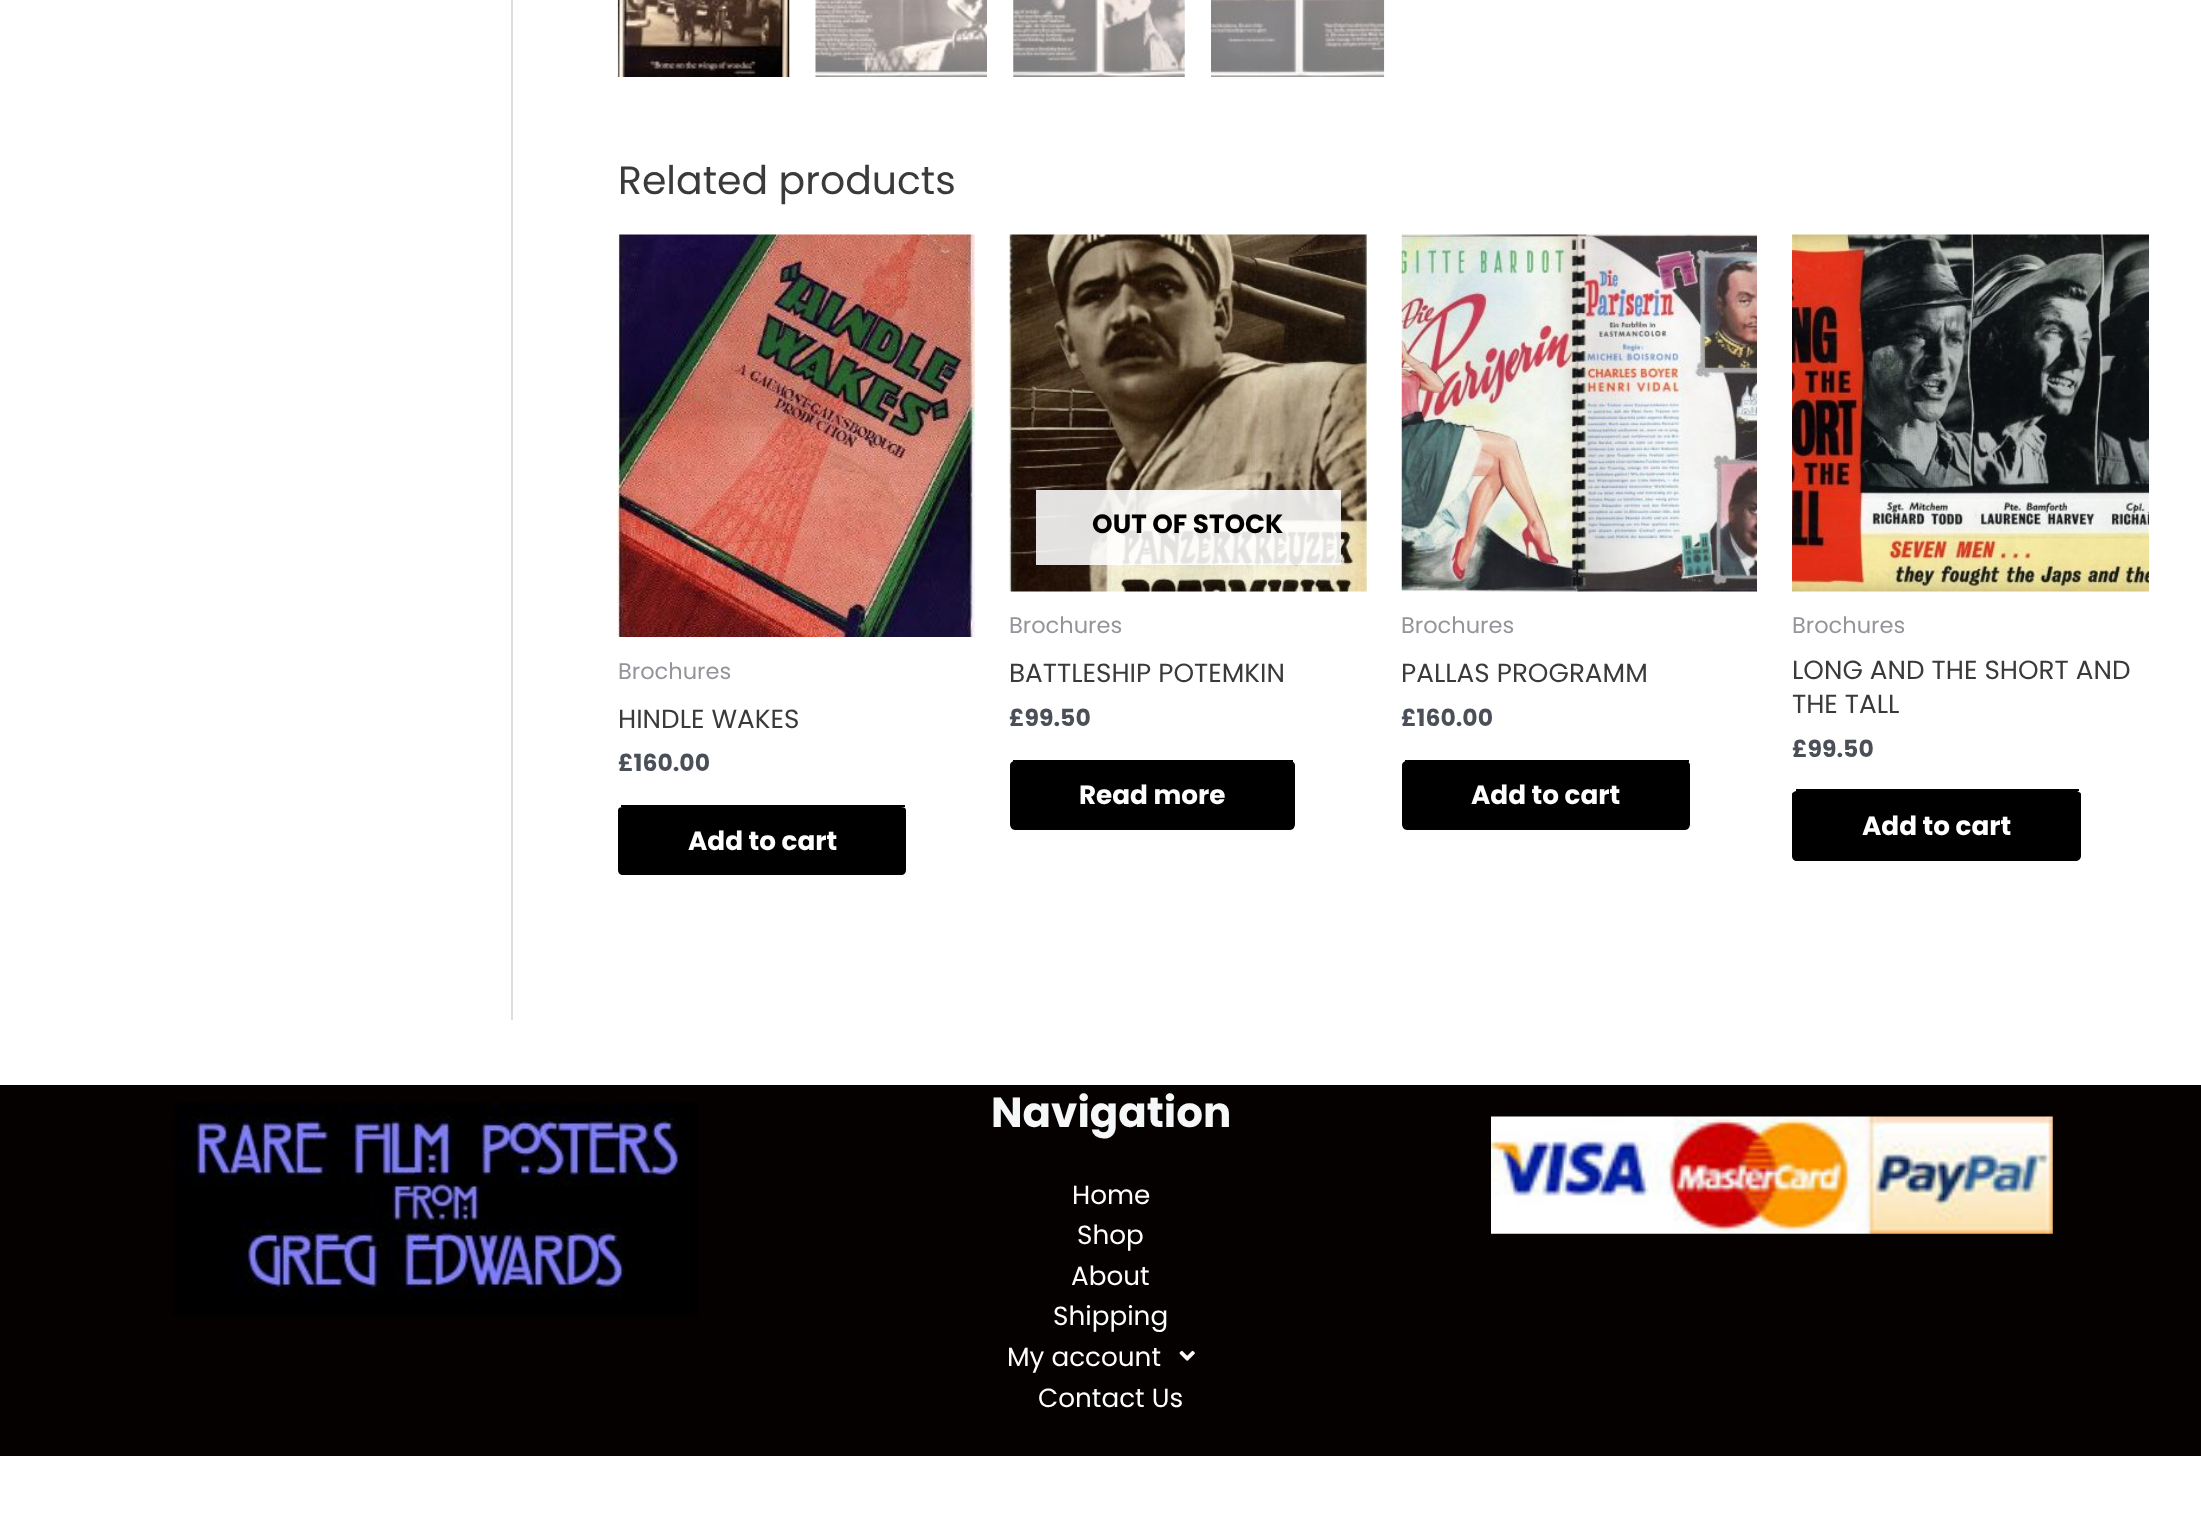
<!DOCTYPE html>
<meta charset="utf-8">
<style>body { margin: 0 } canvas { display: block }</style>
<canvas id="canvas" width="2201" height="1536"></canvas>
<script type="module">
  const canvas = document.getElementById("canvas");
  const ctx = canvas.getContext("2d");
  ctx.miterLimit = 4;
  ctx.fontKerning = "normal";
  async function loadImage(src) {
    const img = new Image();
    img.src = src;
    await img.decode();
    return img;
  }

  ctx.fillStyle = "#ffffff";
  ctx.fillRect(0, 0, 2201, 1536);
  ctx.fillStyle = "#dddddd";
  ctx.fillRect(511, 0, 2, 1020);
  ctx.drawImage(await loadImage("img1.png"), 617, 0, 173, 77);
  ctx.drawImage(await loadImage("img2.png"), 815, 0, 172, 77);
  ctx.drawImage(await loadImage("img3.png"), 1013, 0, 172, 77);
  ctx.drawImage(await loadImage("img4.png"), 1211, 0, 174, 77);
  ctx.font = "39.4px Poppins";
  ctx.fillStyle = "#3a3a3a";
  ctx.fillText("Related products", 618, 194);
  ctx.drawImage(await loadImage("img5.png"), 617, 234, 358, 403);
  ctx.font = "22.5px Poppins";
  ctx.fillStyle = "#93959b";
  ctx.fillText("Brochures", 618, 679);
  ctx.font = "26.25px Poppins";
  ctx.fillStyle = "#3a3a3a";
  ctx.fillText("HINDLE WAKES", 618, 728);
  ctx.font = "bold 23.5px Poppins";
  ctx.fillStyle = "#4b4f58";
  ctx.fillText("£160.00", 618, 771);
  ctx.fillStyle = "#000000";
  ctx.beginPath();
  ctx.moveTo(623, 807);
  ctx.lineTo(901, 807);
  ctx.bezierCurveTo(904, 807, 906, 808, 906, 810);
  ctx.lineTo(906, 870);
  ctx.bezierCurveTo(906, 873, 904, 875, 901, 875);
  ctx.lineTo(623, 875);
  ctx.bezierCurveTo(620, 875, 618, 873, 618, 870);
  ctx.lineTo(618, 810);
  ctx.bezierCurveTo(618, 808, 620, 807, 623, 807);
  ctx.closePath();
  ctx.fill();
  ctx.fillRect(621, 805, 284, 2);
  ctx.font = "bold 26.25px Poppins";
  ctx.fillStyle = "#ffffff";
  ctx.fillText("Add to cart", 688, 850);
  ctx.drawImage(await loadImage("img6.png"), 1009, 234, 358, 358);
  ctx.fillStyle = "rgba(255, 255, 255, 0.88)";
  ctx.fillRect(1036, 490, 305, 75);
  ctx.fillStyle = "#000000";
  ctx.fillText("OUT OF STOCK", 1092, 533);
  ctx.font = "22.5px Poppins";
  ctx.fillStyle = "#93959b";
  ctx.fillText("Brochures", 1009, 633);
  ctx.font = "26.25px Poppins";
  ctx.fillStyle = "#3a3a3a";
  ctx.fillText("BATTLESHIP POTEMKIN", 1009, 682);
  ctx.font = "bold 23.5px Poppins";
  ctx.fillStyle = "#4b4f58";
  ctx.fillText("£99.50", 1009, 726);
  ctx.fillStyle = "#000000";
  ctx.beginPath();
  ctx.moveTo(1015, 761);
  ctx.lineTo(1290, 761);
  ctx.bezierCurveTo(1293, 761, 1295, 763, 1295, 765);
  ctx.lineTo(1295, 824);
  ctx.bezierCurveTo(1295, 827, 1293, 830, 1290, 830);
  ctx.lineTo(1015, 830);
  ctx.bezierCurveTo(1012, 830, 1010, 827, 1010, 824);
  ctx.lineTo(1010, 765);
  ctx.bezierCurveTo(1010, 763, 1012, 761, 1015, 761);
  ctx.closePath();
  ctx.fill();
  ctx.fillRect(1013, 760, 280, 2);
  ctx.font = "bold 26.25px Poppins";
  ctx.fillStyle = "#ffffff";
  ctx.fillText("Read more", 1079, 804);
  ctx.drawImage(await loadImage("img7.png"), 1401, 234, 356, 358);
  ctx.font = "22.5px Poppins";
  ctx.fillStyle = "#93959b";
  ctx.fillText("Brochures", 1401, 633);
  ctx.font = "26.25px Poppins";
  ctx.fillStyle = "#3a3a3a";
  ctx.fillText("PALLAS PROGRAMM", 1401, 682);
  ctx.font = "bold 23.5px Poppins";
  ctx.fillStyle = "#4b4f58";
  ctx.fillText("£160.00", 1401, 726);
  ctx.fillStyle = "#000000";
  ctx.beginPath();
  ctx.moveTo(1407, 761);
  ctx.lineTo(1685, 761);
  ctx.bezierCurveTo(1688, 761, 1690, 763, 1690, 765);
  ctx.lineTo(1690, 824);
  ctx.bezierCurveTo(1690, 827, 1688, 830, 1685, 830);
  ctx.lineTo(1407, 830);
  ctx.bezierCurveTo(1404, 830, 1402, 827, 1402, 824);
  ctx.lineTo(1402, 765);
  ctx.bezierCurveTo(1402, 763, 1404, 761, 1407, 761);
  ctx.closePath();
  ctx.fill();
  ctx.fillRect(1405, 760, 284, 2);
  ctx.font = "bold 26.25px Poppins";
  ctx.fillStyle = "#ffffff";
  ctx.fillText("Add to cart", 1471, 804);
  ctx.drawImage(await loadImage("img8.png"), 1792, 234, 357, 358);
  ctx.font = "22.5px Poppins";
  ctx.fillStyle = "#93959b";
  ctx.fillText("Brochures", 1792, 633);
  ctx.font = "26.25px Poppins";
  ctx.fillStyle = "#3a3a3a";
  ctx.fillText("LONG AND THE SHORT AND", 1792, 679);
  ctx.fillText("THE TALL", 1792, 713);
  ctx.font = "bold 23.5px Poppins";
  ctx.fillStyle = "#4b4f58";
  ctx.fillText("£99.50", 1792, 757);
  ctx.fillStyle = "#000000";
  ctx.beginPath();
  ctx.moveTo(1797, 791);
  ctx.lineTo(2076, 791);
  ctx.bezierCurveTo(2078, 791, 2081, 793, 2081, 794);
  ctx.lineTo(2081, 856);
  ctx.bezierCurveTo(2081, 859, 2078, 861, 2076, 861);
  ctx.lineTo(1797, 861);
  ctx.bezierCurveTo(1794, 861, 1792, 859, 1792, 856);
  ctx.lineTo(1792, 794);
  ctx.bezierCurveTo(1792, 793, 1794, 791, 1797, 791);
  ctx.closePath();
  ctx.fill();
  ctx.fillRect(1796, 789, 283, 2);
  ctx.font = "bold 26.25px Poppins";
  ctx.fillStyle = "#ffffff";
  ctx.fillText("Add to cart", 1862, 835);
  ctx.fillStyle = "#060101";
  ctx.fillRect(0, 1085, 2201, 371);
  ctx.drawImage(await loadImage("img9.png"), 173, 1102, 525, 214);
  ctx.font = "bold 42px Poppins";
  ctx.fillStyle = "#f5f7f8";
  ctx.fillText("Navigation", 991, 1127);
  ctx.font = "26.25px Poppins";
  ctx.fillStyle = "#ffffff";
  ctx.fillText("Home", 1072, 1204);
  ctx.fillText("Shop", 1077, 1244);
  ctx.fillText("About", 1071, 1285);
  ctx.fillText("Shipping", 1053, 1325);
  ctx.fillText("My account", 1007, 1366);
  ctx.drawImage(await loadImage("img10.png"), 1179, 1350, 16, 11);
  ctx.fillText("Contact Us", 1038, 1407);
  ctx.drawImage(await loadImage("img11.png"), 1491, 1116, 562, 118);
</script>
